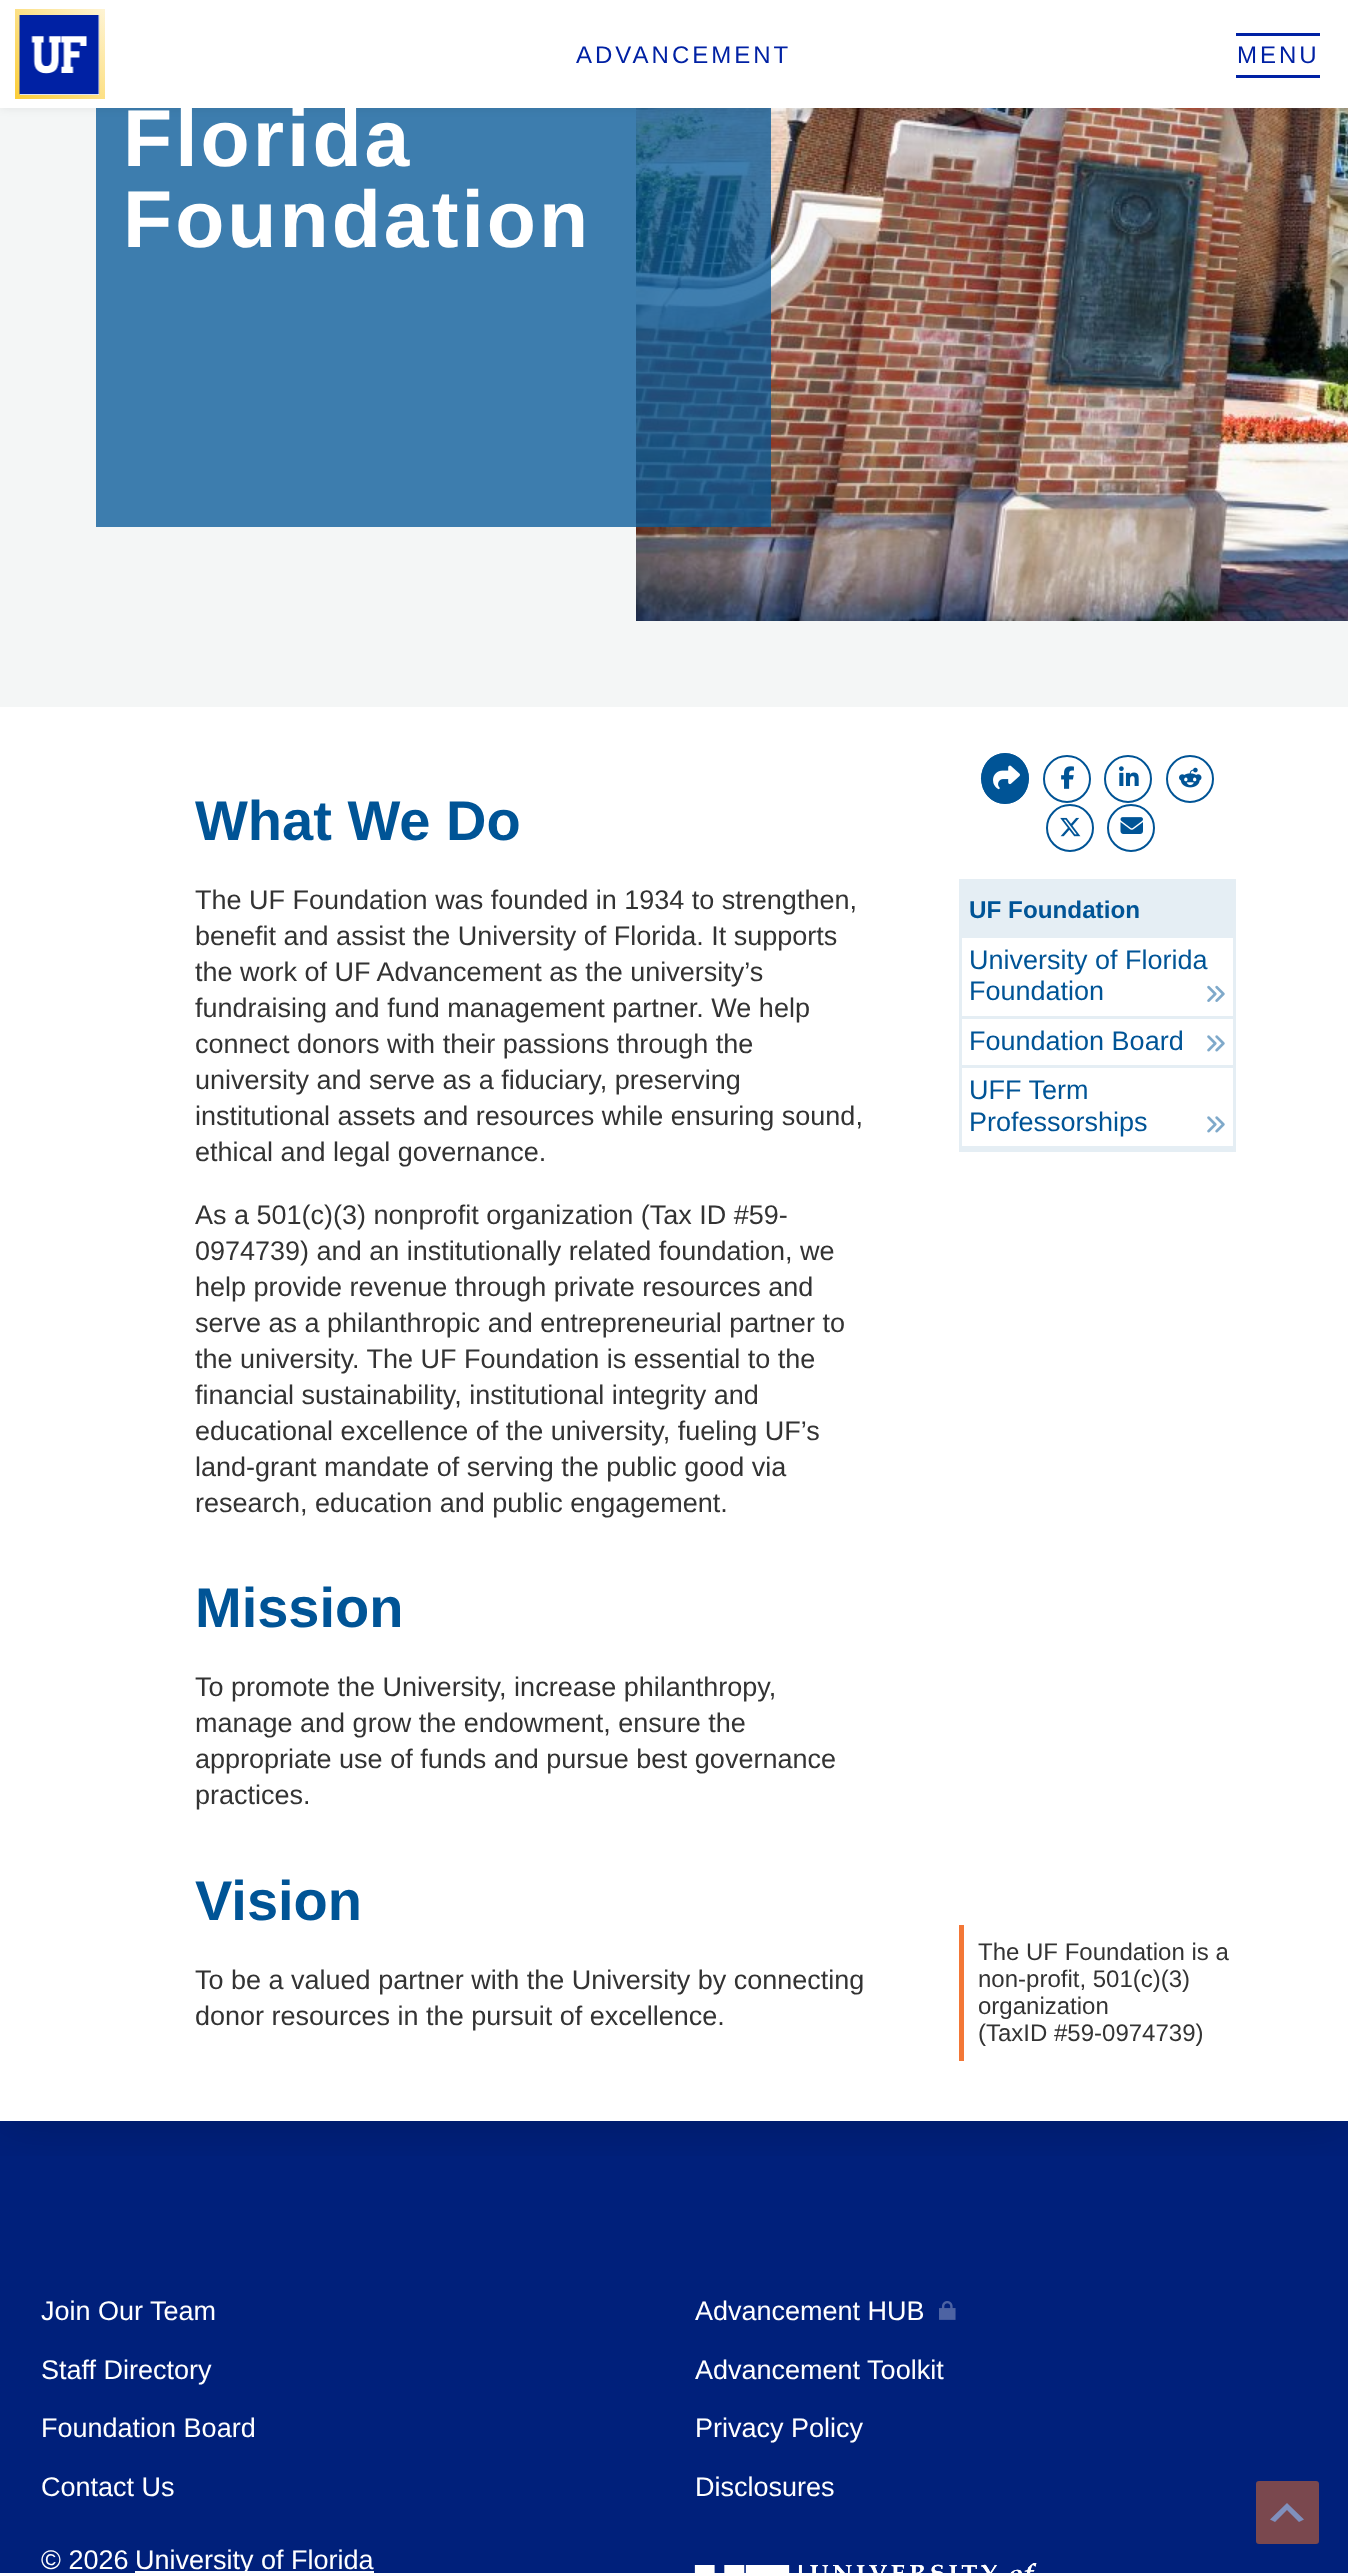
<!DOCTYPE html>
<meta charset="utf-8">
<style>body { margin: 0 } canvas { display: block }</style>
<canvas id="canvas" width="1348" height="2573"></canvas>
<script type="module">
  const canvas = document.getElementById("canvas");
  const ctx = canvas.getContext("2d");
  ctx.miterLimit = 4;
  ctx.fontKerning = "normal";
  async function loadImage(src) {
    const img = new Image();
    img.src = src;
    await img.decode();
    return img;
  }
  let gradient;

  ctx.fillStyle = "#ffffff";
  ctx.fillRect(0, 0, 1348, 2573);
  ctx.fillStyle = "#00207b";
  ctx.fillRect(0, 2121, 1348, 452);
  ctx.save();
  ctx.beginPath();
  ctx.rect(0, 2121, 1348, 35);
  ctx.clip();
  ctx.fillStyle = "rgba(0, 0, 0, 0.2)";
  ctx.filter = "blur(27px)";
  ctx.beginPath();
  ctx.rect(0, -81, 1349, 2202);
  ctx.fill();
  ctx.filter = "none";
  ctx.restore();
  ctx.fillStyle = "#f4f6f6";
  ctx.fillRect(0, 108, 1348, 599);
  ctx.drawImage(await loadImage("img2.png"), 636, 108, 712, 513);
  ctx.fillStyle = "rgba(0, 84, 150, 0.75)";
  ctx.fillRect(96, 108, 675, 419);
  ctx.fillStyle = "rgba(0, 0, 0, 0.08)";
  ctx.filter = "blur(5px)";
  ctx.beginPath();
  ctx.rect(0, 0, 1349, 108);
  ctx.fill();
  ctx.filter = "none";
  ctx.fillStyle = "#ffffff";
  ctx.fillRect(0, 0, 1348, 108);
  gradient = ctx.createLinearGradient(15, 99, 105, 9);
  gradient.addColorStop(0, "#fbcd38");
  gradient.addColorStop(1, "#fef4d5");
  ctx.fillStyle = gradient;
  ctx.fillRect(15, 9, 90, 90);
  ctx.fillStyle = "#ffffff";
  ctx.fillRect(20, 15, 79, 80);
  ctx.drawImage(await loadImage("img1.png"), 19, 15, 81, 80);
  ctx.letterSpacing = "3px";
  ctx.font = "24px Liberation Sans";
  ctx.fillStyle = "#0021a4";
  ctx.fillText("ADVANCEMENT", 576, 63);
  ctx.fillRect(1236, 33, 84, 3);
  ctx.fillText("MENU", 1237, 63);
  ctx.fillRect(1236, 75, 84, 3);
  ctx.font = "bold 80.5px Liberation Sans";
  ctx.fillStyle = "#ffffff";
  ctx.fillText("Florida", 123, 166);
  ctx.fillText("Foundation", 123, 247);
  ctx.letterSpacing = "0px";
  ctx.font = "bold 56px Liberation Sans";
  ctx.fillStyle = "#005496";
  ctx.fillText("What We Do", 195, 840);
  ctx.font = "27px Liberation Sans";
  ctx.fillStyle = "#333333";
  ctx.fillText("The UF Foundation was founded in 1934 to strengthen,", 195, 909);
  ctx.fillText("benefit and assist the University of Florida. It supports", 195, 945);
  ctx.fillText("the work of UF Advancement as the university’s", 195, 981);
  ctx.fillText("fundraising and fund management partner. We help", 195, 1017);
  ctx.fillText("connect donors with their passions through the", 195, 1053);
  ctx.fillText("university and serve as a fiduciary, preserving", 195, 1089);
  ctx.fillText("institutional assets and resources while ensuring sound,", 195, 1125);
  ctx.fillText("ethical and legal governance.", 195, 1161);
  ctx.fillText("As a 501(c)(3) nonprofit organization (Tax ID #59-", 195, 1224);
  ctx.fillText("0974739) and an institutionally related foundation, we", 195, 1260);
  ctx.fillText("help provide revenue through private resources and", 195, 1296);
  ctx.fillText("serve as a philanthropic and entrepreneurial partner to", 195, 1332);
  ctx.fillText("the university. The UF Foundation is essential to the", 195, 1368);
  ctx.fillText("financial sustainability, institutional integrity and", 195, 1404);
  ctx.fillText("educational excellence of the university, fueling UF’s", 195, 1440);
  ctx.fillText("land-grant mandate of serving the public good via", 195, 1476);
  ctx.fillText("research, education and public engagement.", 195, 1512);
  ctx.font = "bold 56px Liberation Sans";
  ctx.fillStyle = "#005496";
  ctx.fillText("Mission", 195, 1627);
  ctx.font = "27px Liberation Sans";
  ctx.fillStyle = "#333333";
  ctx.fillText("To promote the University, increase philanthropy,", 195, 1696);
  ctx.fillText("manage and grow the endowment, ensure the", 195, 1732);
  ctx.fillText("appropriate use of funds and pursue best governance", 195, 1768);
  ctx.fillText("practices.", 195, 1804);
  ctx.font = "bold 56px Liberation Sans";
  ctx.fillStyle = "#005496";
  ctx.fillText("Vision", 195, 1920);
  ctx.font = "27px Liberation Sans";
  ctx.fillStyle = "#333333";
  ctx.fillText("To be a valued partner with the University by connecting", 195, 1989);
  ctx.fillText("donor resources in the pursuit of excellence.", 195, 2025);
  ctx.fillStyle = "#005496";
  ctx.beginPath();
  ctx.ellipse(1005, 778.5, 24, 25.5, 0, 0, Math.PI * 2);
  ctx.fill();
  ctx.beginPath();
  ctx.moveTo(1005, 754);
  ctx.bezierCurveTo(1035.5, 754, 1035.5, 803, 1005, 803);
  ctx.bezierCurveTo(974.5, 803, 974.5, 754, 1005, 754);
  ctx.closePath();
  ctx.strokeStyle = "#005496";
  ctx.lineWidth = 1.5;
  ctx.stroke();
  ctx.drawImage(await loadImage("img3.png"), 993, 765, 27, 25);
  ctx.beginPath();
  ctx.arc(1067, 779, 23, 0, Math.PI * 2);
  ctx.lineWidth = 2;
  ctx.stroke();
  ctx.drawImage(await loadImage("img4.png"), 1061, 766, 13, 23);
  ctx.beginPath();
  ctx.arc(1128, 779, 23, 0, Math.PI * 2);
  ctx.stroke();
  ctx.drawImage(await loadImage("img5.png"), 1119, 766, 20, 20);
  ctx.beginPath();
  ctx.arc(1190, 779, 23, 0, Math.PI * 2);
  ctx.stroke();
  ctx.drawImage(await loadImage("img6.png"), 1179, 767, 23, 21);
  ctx.beginPath();
  ctx.arc(1070, 828, 23, 0, Math.PI * 2);
  ctx.stroke();
  ctx.drawImage(await loadImage("img7.png"), 1060, 817, 21, 20);
  ctx.beginPath();
  ctx.arc(1131, 828, 23, 0, Math.PI * 2);
  ctx.stroke();
  ctx.drawImage(await loadImage("img8.png"), 1120, 817, 23, 17);
  ctx.strokeStyle = "#e5eef4";
  ctx.lineWidth = 3;
  ctx.strokeRect(960.5, 880.5, 274, 270);
  ctx.fillStyle = "#e5eef4";
  ctx.fillRect(962, 882, 271, 56);
  ctx.font = "bold 24.25px Liberation Sans";
  ctx.fillStyle = "#005496";
  ctx.fillText("UF Foundation", 969, 918);
  ctx.fillStyle = "#e5eef4";
  ctx.fillRect(962, 1016, 271, 3);
  ctx.font = "27px Liberation Sans";
  ctx.fillStyle = "#005496";
  ctx.fillText("University of Florida", 969, 969);
  ctx.fillText("Foundation", 969, 1000);
  ctx.drawImage(await loadImage("img9.png"), 1207, 985, 18, 17);
  ctx.fillStyle = "#e5eef4";
  ctx.fillRect(962, 1065, 271, 3);
  ctx.fillStyle = "#005496";
  ctx.fillText("Foundation Board", 969, 1050);
  ctx.drawImage(await loadImage("img10.png"), 1207, 1035, 18, 17);
  ctx.fillStyle = "#e5eef4";
  ctx.fillRect(962, 1146, 271, 3);
  ctx.fillStyle = "#005496";
  ctx.fillText("UFF Term", 969, 1099);
  ctx.fillText("Professorships", 969, 1131);
  ctx.drawImage(await loadImage("img10.png"), 1207, 1116, 18, 17);
  ctx.fillStyle = "#f37736";
  ctx.fillRect(959, 1925, 5, 136);
  ctx.font = "24px Liberation Sans";
  ctx.fillStyle = "#333333";
  ctx.fillText("The UF Foundation is a", 978, 1960);
  ctx.fillText("non-profit, 501(c)(3)", 978, 1987);
  ctx.fillText("organization", 978, 2014);
  ctx.fillText("(TaxID #59-0974739)", 978, 2041);
  ctx.font = "27px Liberation Sans";
  ctx.fillStyle = "#ffffff";
  ctx.fillText("Join Our Team", 41, 2320);
  ctx.fillText("Staff Directory", 41, 2379);
  ctx.fillText("Foundation Board", 41, 2437);
  ctx.fillText("Contact Us", 41, 2496);
  ctx.fillText("Advancement HUB", 695, 2320);
  ctx.drawImage(await loadImage("img11.png"), 939, 2301, 17, 19);
  ctx.fillText("Advancement Toolkit", 695, 2379);
  ctx.fillText("Privacy Policy", 695, 2437);
  ctx.fillText("Disclosures", 695, 2496);
  ctx.fillText("© 2026", 41, 2569);
  ctx.fillRect(135, 2571, 239, 2);
  ctx.fillText("University of Florida", 135, 2569);
  ctx.drawImage(await loadImage("img12.png"), 694, 2563, 343, 10);
  ctx.fillStyle = "#7a484e";
  ctx.beginPath();
  ctx.roundRect(1256, 2481, 63, 63, 3);
  ctx.fill();
  ctx.fillStyle = "#8090bd";
  ctx.beginPath();
  ctx.moveTo(1299, 2522);
  ctx.lineTo(1287, 2510);
  ctx.lineTo(1275, 2522);
  ctx.lineTo(1270, 2519.5);
  ctx.lineTo(1287, 2503);
  ctx.lineTo(1304, 2519.5);
  ctx.closePath();
  ctx.fill();
</script>
